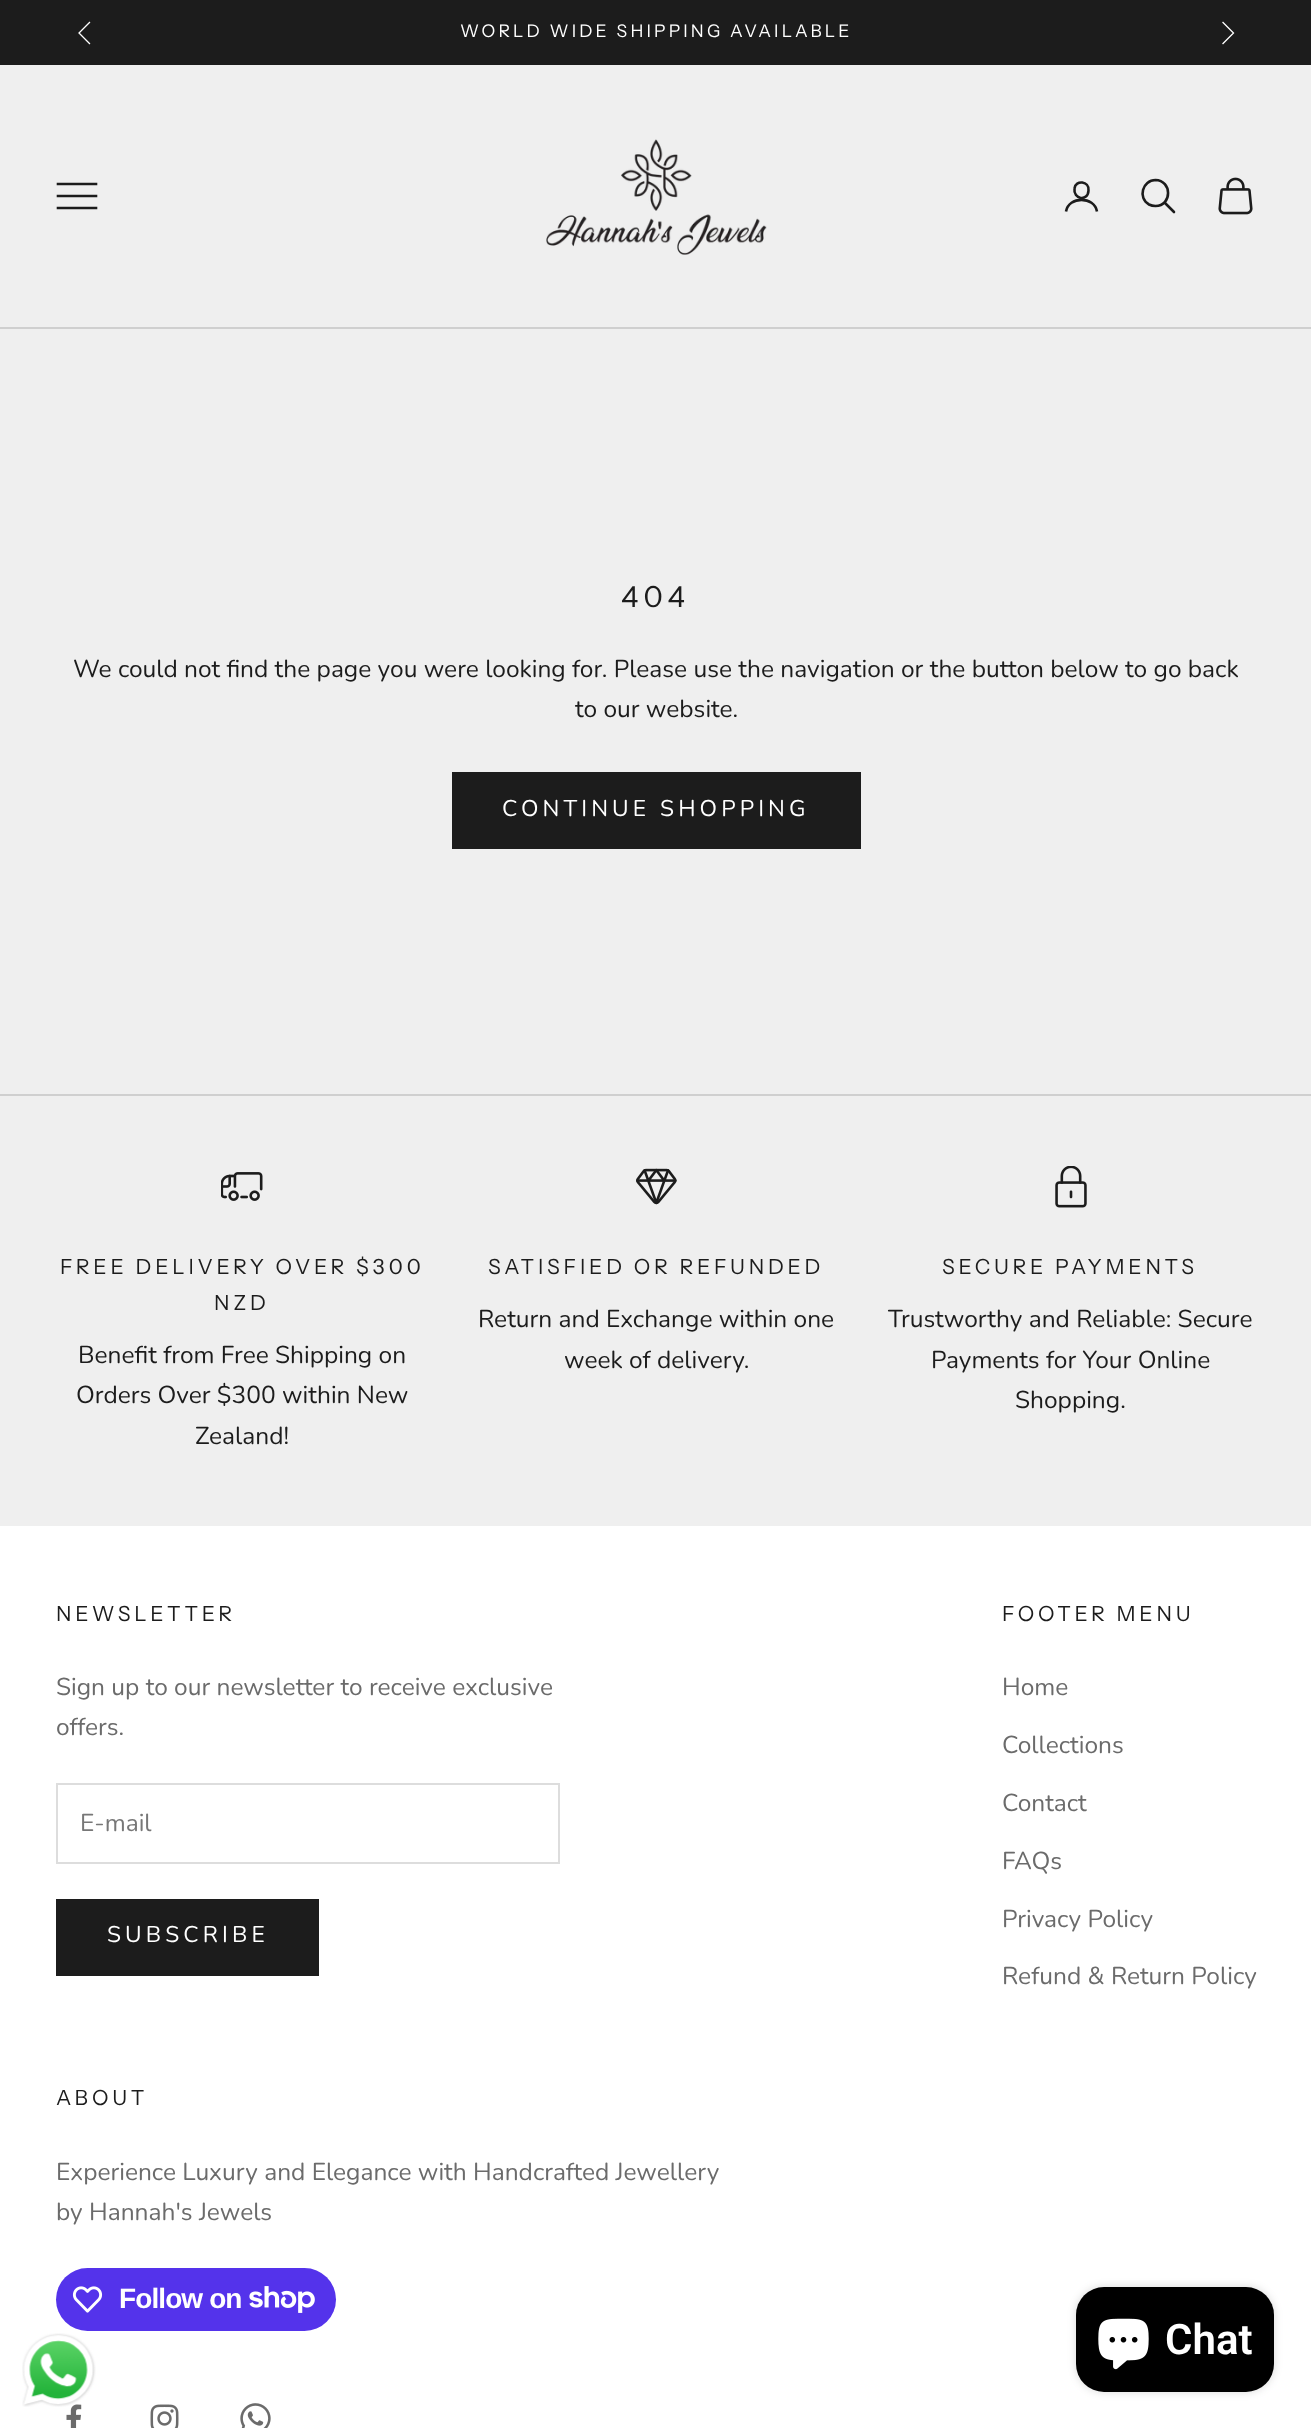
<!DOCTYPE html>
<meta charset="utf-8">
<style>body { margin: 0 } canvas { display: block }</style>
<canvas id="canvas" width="1311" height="2428"></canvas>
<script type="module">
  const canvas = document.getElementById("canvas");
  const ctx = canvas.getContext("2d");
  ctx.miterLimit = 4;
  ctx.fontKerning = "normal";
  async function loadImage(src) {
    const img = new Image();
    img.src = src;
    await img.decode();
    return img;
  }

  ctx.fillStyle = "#efefef";
  ctx.fillRect(0, 0, 1311, 2428);
  ctx.fillStyle = "#1c1c1c";
  ctx.fillRect(0, 0, 1311, 65);
  ctx.beginPath();
  ctx.moveTo(89.5, 22.5);
  ctx.lineTo(79, 33);
  ctx.lineTo(89.5, 43.5);
  ctx.strokeStyle = "#ffffff";
  ctx.lineWidth = 1.3;
  ctx.lineCap = "square";
  ctx.stroke();
  ctx.letterSpacing = "3.15px";
  ctx.font = "17.5px Instrument Sans";
  ctx.fillStyle = "#ffffff";
  ctx.fillText("WORLD WIDE SHIPPING AVAILABLE", 460, 37);
  ctx.beginPath();
  ctx.moveTo(1223, 43.5);
  ctx.lineTo(1233.5, 33);
  ctx.lineTo(1223, 22.5);
  ctx.stroke();
  ctx.fillStyle = "#cfcfcf";
  ctx.fillRect(0, 327, 1311, 2);
  ctx.beginPath();
  ctx.moveTo(58, 208);
  ctx.lineTo(96, 208);
  ctx.moveTo(58, 196);
  ctx.lineTo(96, 196);
  ctx.moveTo(58, 184);
  ctx.lineTo(96, 184);
  ctx.strokeStyle = "#1c1c1c";
  ctx.lineWidth = 2.6;
  ctx.stroke();
  ctx.drawImage(await loadImage("img1.png"), 546, 139, 221, 116);
  ctx.beginPath();
  ctx.moveTo(1088.5, 190.5);
  ctx.bezierCurveTo(1088, 202, 1073, 199.5, 1074.5, 188.5);
  ctx.bezierCurveTo(1075.5, 179.5, 1089.5, 181, 1088.5, 190.5);
  ctx.closePath();
  ctx.lineCap = "round";
  ctx.lineJoin = "round";
  ctx.stroke();
  ctx.beginPath();
  ctx.moveTo(1066, 211.5);
  ctx.bezierCurveTo(1068.5, 196, 1094.5, 196, 1097, 211.5);
  ctx.lineCap = "butt";
  ctx.lineJoin = "miter";
  ctx.stroke();
  ctx.beginPath();
  ctx.moveTo(1155.5, 180);
  ctx.bezierCurveTo(1142.5, 180, 1137.5, 198, 1149, 204.5);
  ctx.bezierCurveTo(1151, 205.5, 1153.5, 206, 1155.5, 206);
  ctx.bezierCurveTo(1172.5, 205.5, 1172, 180.5, 1155.5, 180);
  ctx.closePath();
  ctx.stroke();
  ctx.beginPath();
  ctx.moveTo(1165, 203);
  ctx.lineTo(1174, 212);
  ctx.lineCap = "round";
  ctx.stroke();
  ctx.drawImage(await loadImage("img2.png"), 1218, 177, 35, 38);
  ctx.letterSpacing = "5px";
  ctx.font = "29px Instrument Sans";
  ctx.fillStyle = "#1c1c1c";
  ctx.fillText("404", 621, 607);
  ctx.letterSpacing = "0px";
  ctx.font = "24.5px Nunito";
  ctx.fillText("We could not find the page you were looking for. Please use the navigation or the button below to go back", 73, 677);
  ctx.fillText("to our website.", 575, 717);
  ctx.beginPath();
  ctx.rect(453, 773, 407, 75);
  ctx.fill();
  ctx.lineWidth = 2;
  ctx.stroke();
  ctx.letterSpacing = "4.1px";
  ctx.font = "22.75px Nunito";
  ctx.fillStyle = "#ffffff";
  ctx.fillText("CONTINUE SHOPPING", 502, 816);
  ctx.fillStyle = "#cfcfcf";
  ctx.fillRect(0, 1094, 1311, 2);
  ctx.drawImage(await loadImage("img3.png"), 221, 1172, 42, 29);
  ctx.letterSpacing = "3.75px";
  ctx.font = "21px Instrument Sans";
  ctx.fillStyle = "#1c1c1c";
  ctx.fillText("FREE DELIVERY OVER $300", 60, 1274);
  ctx.fillText("NZD", 214, 1310);
  ctx.letterSpacing = "0px";
  ctx.font = "24.5px Nunito";
  ctx.fillText("Benefit from Free Shipping on", 78, 1363);
  ctx.fillText("Orders Over $300 within New", 76, 1403);
  ctx.fillText("Zealand!", 195, 1444);
  ctx.drawImage(await loadImage("img4.png"), 636, 1168, 41, 37);
  ctx.letterSpacing = "3.75px";
  ctx.font = "21px Instrument Sans";
  ctx.fillText("SATISFIED OR REFUNDED", 488, 1274);
  ctx.letterSpacing = "0px";
  ctx.font = "24.5px Nunito";
  ctx.fillText("Return and Exchange within one", 478, 1327);
  ctx.fillText("week of delivery.", 564, 1368);
  ctx.drawImage(await loadImage("img5.png"), 1055, 1166, 32, 42);
  ctx.letterSpacing = "3.75px";
  ctx.font = "21px Instrument Sans";
  ctx.fillText("SECURE PAYMENTS", 942, 1274);
  ctx.letterSpacing = "0px";
  ctx.font = "24.5px Nunito";
  ctx.fillText("Trustworthy and Reliable: Secure", 888, 1327);
  ctx.fillText("Payments for Your Online", 931, 1368);
  ctx.fillText("Shopping.", 1015, 1408);
  ctx.fillStyle = "#ffffff";
  ctx.fillRect(0, 1526, 1311, 902);
  ctx.letterSpacing = "3.75px";
  ctx.font = "21px Instrument Sans";
  ctx.fillStyle = "#1c1c1c";
  ctx.fillText("NEWSLETTER", 56, 1621);
  ctx.letterSpacing = "0px";
  ctx.font = "24.5px Nunito";
  ctx.fillStyle = "#6b6b6b";
  ctx.fillText("Sign up to our newsletter to receive exclusive", 56, 1695);
  ctx.fillText("offers.", 56, 1735);
  ctx.strokeStyle = "#dddddd";
  ctx.strokeRect(57, 1784, 502, 79);
  ctx.fillStyle = "#777777";
  ctx.fillText("E-mail", 80, 1831);
  ctx.fillStyle = "#1c1c1c";
  ctx.beginPath();
  ctx.rect(57, 1900, 261, 75);
  ctx.fill();
  ctx.strokeStyle = "#1c1c1c";
  ctx.stroke();
  ctx.letterSpacing = "4.1px";
  ctx.font = "22.75px Nunito";
  ctx.fillStyle = "#ffffff";
  ctx.fillText("SUBSCRIBE", 107, 1942);
  ctx.letterSpacing = "3.75px";
  ctx.font = "21px Instrument Sans";
  ctx.fillStyle = "#1c1c1c";
  ctx.fillText("FOOTER MENU", 1002, 1621);
  ctx.letterSpacing = "0px";
  ctx.font = "24.5px Nunito";
  ctx.fillStyle = "#6b6b6b";
  ctx.fillText("Home", 1002, 1695);
  ctx.fillText("Collections", 1002, 1753);
  ctx.fillText("Contact", 1002, 1811);
  ctx.fillText("FAQs", 1002, 1869);
  ctx.fillText("Privacy Policy", 1002, 1927);
  ctx.fillText("Refund & Return Policy", 1002, 1984);
  ctx.letterSpacing = "3.75px";
  ctx.font = "21px Instrument Sans";
  ctx.fillStyle = "#1c1c1c";
  ctx.fillText("ABOUT", 56, 2105);
  ctx.letterSpacing = "0px";
  ctx.font = "24.5px Nunito";
  ctx.fillStyle = "#6b6b6b";
  ctx.fillText("Experience Luxury and Elegance with Handcrafted Jewellery", 56, 2180);
  ctx.fillText("by Hannah's Jewels", 56, 2220);
  ctx.fillStyle = "#5433eb";
  ctx.beginPath();
  ctx.roundRect(56, 2268, 280, 63, 31.5);
  ctx.fill();
  ctx.drawImage(await loadImage("img6.png"), 72, 2286, 31, 27);
  ctx.letterSpacing = "-0.9px";
  ctx.font = "bold 28px Liberation Sans";
  ctx.fillStyle = "#ffffff";
  ctx.fillText("Follow on", 119, 2308);
  ctx.drawImage(await loadImage("img7.png"), 249, 2286, 66, 27);
  ctx.drawImage(await loadImage("img8.png"), 66, 2404, 16, 24);
  ctx.drawImage(await loadImage("img9.png"), 150, 2404, 29, 24);
  ctx.drawImage(await loadImage("img10.png"), 240, 2403, 31, 25);
  ctx.drawImage(await loadImage("img11.png"), 22, 2333, 74, 74);
  ctx.fillStyle = "rgba(0, 0, 0, 0.15)";
  ctx.filter = "blur(4.5px)";
  ctx.beginPath();
  ctx.roundRect(1076, 2287, 198, 105, 28);
  ctx.fill();
  ctx.filter = "none";
  ctx.fillStyle = "#000000";
  ctx.beginPath();
  ctx.roundRect(1076, 2287, 198, 105, 28);
  ctx.fill();
  ctx.drawImage(await loadImage("img12.png"), 1098, 2318, 51, 52);
  ctx.letterSpacing = "0px";
  ctx.font = "600 42px Roboto";
  ctx.fillStyle = "#ffffff";
  ctx.fillText("Chat", 1165, 2354);
</script>
